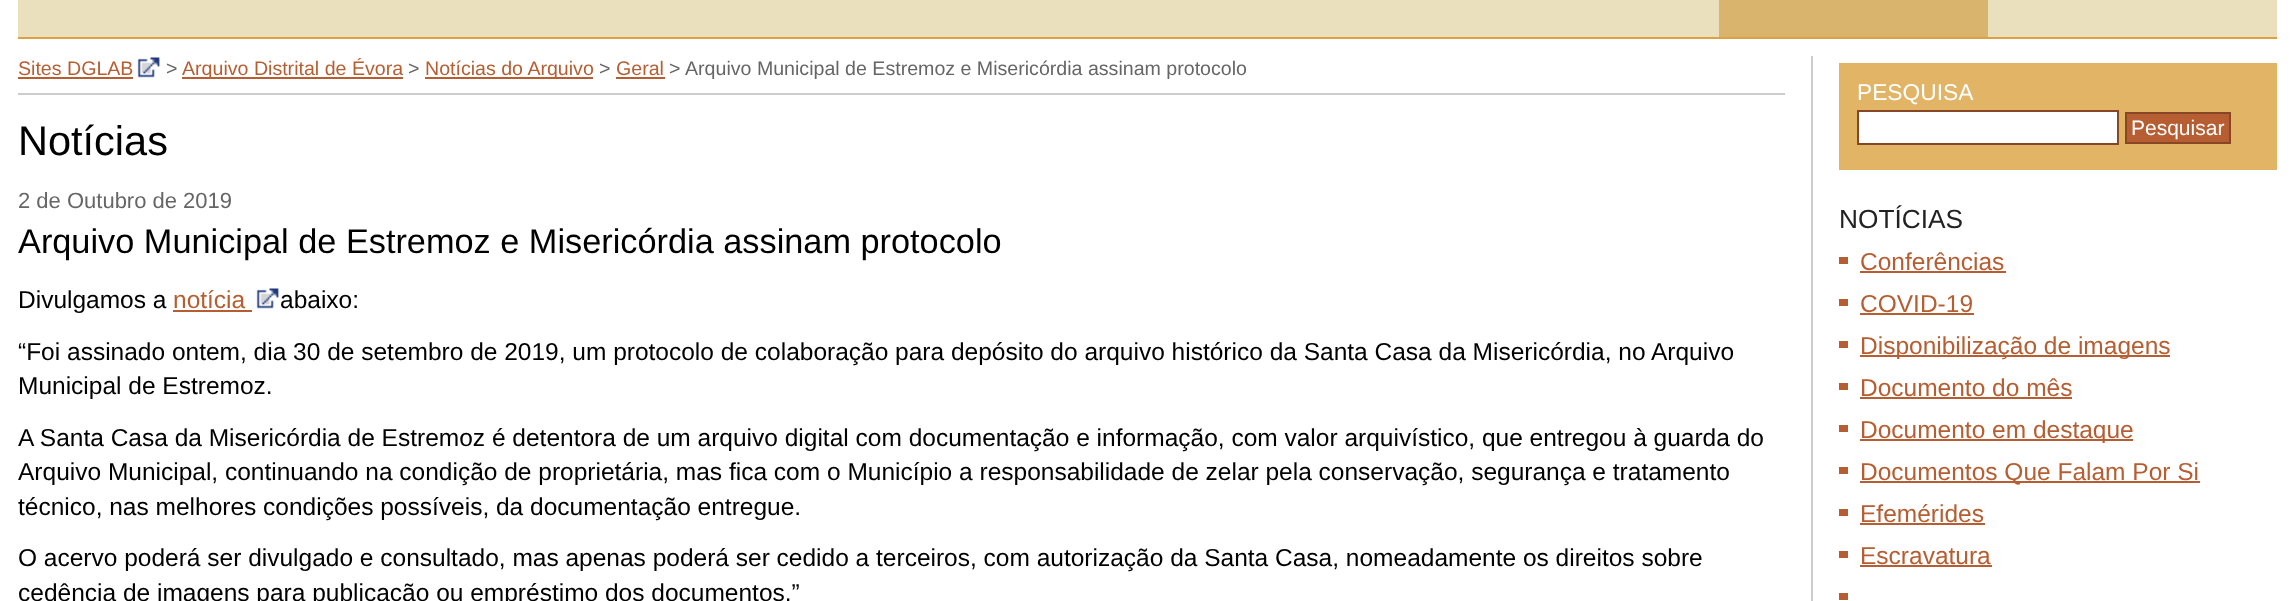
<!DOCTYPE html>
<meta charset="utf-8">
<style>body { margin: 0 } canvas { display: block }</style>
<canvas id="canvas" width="2294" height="601"></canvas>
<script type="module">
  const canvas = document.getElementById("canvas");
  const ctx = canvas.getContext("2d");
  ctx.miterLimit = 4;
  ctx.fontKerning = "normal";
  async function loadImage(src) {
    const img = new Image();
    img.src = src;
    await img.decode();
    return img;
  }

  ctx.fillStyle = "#ffffff";
  ctx.fillRect(0, 0, 2294, 601);
  ctx.fillStyle = "#ebe0bd";
  ctx.fillRect(18, 0, 2259, 37);
  ctx.fillStyle = "#d9b46c";
  ctx.fillRect(1719, 0, 269, 37);
  ctx.fillStyle = "#dca142";
  ctx.fillRect(18, 37, 2259, 2);
  ctx.fillStyle = "#cccccc";
  ctx.fillRect(1811, 56, 2, 545);
  ctx.fillRect(18, 93, 1767, 2);
  ctx.font = "19.6px Liberation Sans";
  ctx.fillStyle = "#b65e32";
  ctx.fillText("Sites DGLAB", 18, 75);
  ctx.fillRect(18, 77, 115, 2);
  ctx.drawImage(await loadImage("img1.png"), 137, 57, 23, 21);
  ctx.fillStyle = "#666666";
  ctx.fillText(">", 166, 75);
  ctx.fillStyle = "#b65e32";
  ctx.fillRect(182, 77, 221, 2);
  ctx.fillText("Arquivo Distrital de Évora", 182, 75);
  ctx.fillStyle = "#666666";
  ctx.fillText(">", 408, 75);
  ctx.fillStyle = "#b65e32";
  ctx.fillRect(425, 77, 168, 2);
  ctx.fillText("Notícias do Arquivo", 425, 75);
  ctx.fillStyle = "#666666";
  ctx.fillText(">", 599, 75);
  ctx.fillStyle = "#b65e32";
  ctx.fillText("Geral", 616, 75);
  ctx.fillRect(616, 77, 49, 2);
  ctx.fillStyle = "#666666";
  ctx.fillText(">", 669, 75);
  ctx.fillText("Arquivo Municipal de Estremoz e Misericórdia assinam protocolo", 685, 75);
  ctx.font = "41.5px Liberation Sans";
  ctx.fillStyle = "#000000";
  ctx.fillText("Notícias", 18, 155);
  ctx.font = "22px Liberation Sans";
  ctx.fillStyle = "#666666";
  ctx.fillText("2 de Outubro de 2019", 18, 208);
  ctx.font = "34.3px Liberation Sans";
  ctx.fillStyle = "#000000";
  ctx.fillText("Arquivo Municipal de Estremoz e Misericórdia assinam protocolo", 18, 253);
  ctx.font = "24.5px Liberation Sans";
  ctx.fillText("Divulgamos a", 18, 308);
  ctx.fillStyle = "#b65e32";
  ctx.fillText("notícia", 173, 308);
  ctx.fillRect(173, 310, 79, 2);
  ctx.drawImage(await loadImage("img1.png"), 256, 288, 23, 21);
  ctx.fillStyle = "#000000";
  ctx.fillText("abaixo:", 280, 308);
  ctx.fillText("“Foi assinado ontem, dia 30 de setembro de 2019, um protocolo de colaboração para depósito do arquivo histórico da Santa Casa da Misericórdia, no Arquivo", 18, 360);
  ctx.fillText("Municipal de Estremoz.", 18, 394);
  ctx.fillText("A Santa Casa da Misericórdia de Estremoz é detentora de um arquivo digital com documentação e informação, com valor arquivístico, que entregou à guarda do", 18, 446);
  ctx.fillText("Arquivo Municipal, continuando na condição de proprietária, mas fica com o Município a responsabilidade de zelar pela conservação, segurança e tratamento", 18, 480);
  ctx.fillText("técnico, nas melhores condições possíveis, da documentação entregue.", 18, 515);
  ctx.fillText("O acervo poderá ser divulgado e consultado, mas apenas poderá ser cedido a terceiros, com autorização da Santa Casa, nomeadamente os direitos sobre", 18, 566);
  ctx.fillText("cedência de imagens para publicação ou empréstimo dos documentos.”", 18, 601);
  ctx.fillStyle = "#e2b466";
  ctx.fillRect(1839, 63, 438, 107);
  ctx.font = "22.75px Liberation Sans";
  ctx.fillStyle = "#ffffff";
  ctx.fillText("PESQUISA", 1857, 100);
  ctx.beginPath();
  ctx.rect(1858, 111, 260, 33);
  ctx.fill();
  ctx.strokeStyle = "#874626";
  ctx.lineWidth = 2;
  ctx.stroke();
  ctx.fillStyle = "#b65e32";
  ctx.beginPath();
  ctx.rect(2126, 113, 104, 30);
  ctx.fill();
  ctx.stroke();
  ctx.font = "21px Liberation Sans";
  ctx.fillStyle = "#ffffff";
  ctx.fillText("Pesquisar", 2131, 135);
  ctx.font = "26.25px Liberation Sans";
  ctx.fillStyle = "#222222";
  ctx.fillText("NOTÍCIAS", 1839, 228);
  ctx.fillStyle = "#b65e32";
  ctx.fillRect(1839, 257, 9, 7);
  ctx.font = "24.5px Liberation Sans";
  ctx.fillText("Conferências", 1860, 270);
  ctx.fillRect(1860, 271, 146, 2);
  ctx.fillRect(1839, 299, 9, 7);
  ctx.fillText("COVID-19", 1860, 312);
  ctx.fillRect(1860, 313, 114, 2);
  ctx.fillRect(1839, 341, 9, 7);
  ctx.fillRect(1860, 355, 310, 2);
  ctx.fillText("Disponibilização de imagens", 1860, 354);
  ctx.fillRect(1839, 383, 9, 7);
  ctx.fillText("Documento do mês", 1860, 396);
  ctx.fillRect(1860, 397, 212, 2);
  ctx.fillRect(1839, 425, 9, 7);
  ctx.fillRect(1860, 439, 273, 2);
  ctx.fillText("Documento em destaque", 1860, 438);
  ctx.fillRect(1839, 467, 9, 7);
  ctx.fillRect(1860, 481, 340, 2);
  ctx.fillText("Documentos Que Falam Por Si", 1860, 480);
  ctx.fillRect(1839, 509, 9, 7);
  ctx.fillText("Efemérides", 1860, 522);
  ctx.fillRect(1860, 523, 125, 2);
  ctx.fillRect(1839, 551, 9, 7);
  ctx.fillText("Escravatura", 1860, 564);
  ctx.fillRect(1860, 565, 132, 2);
  ctx.fillRect(1839, 593, 9, 7);
</script>
